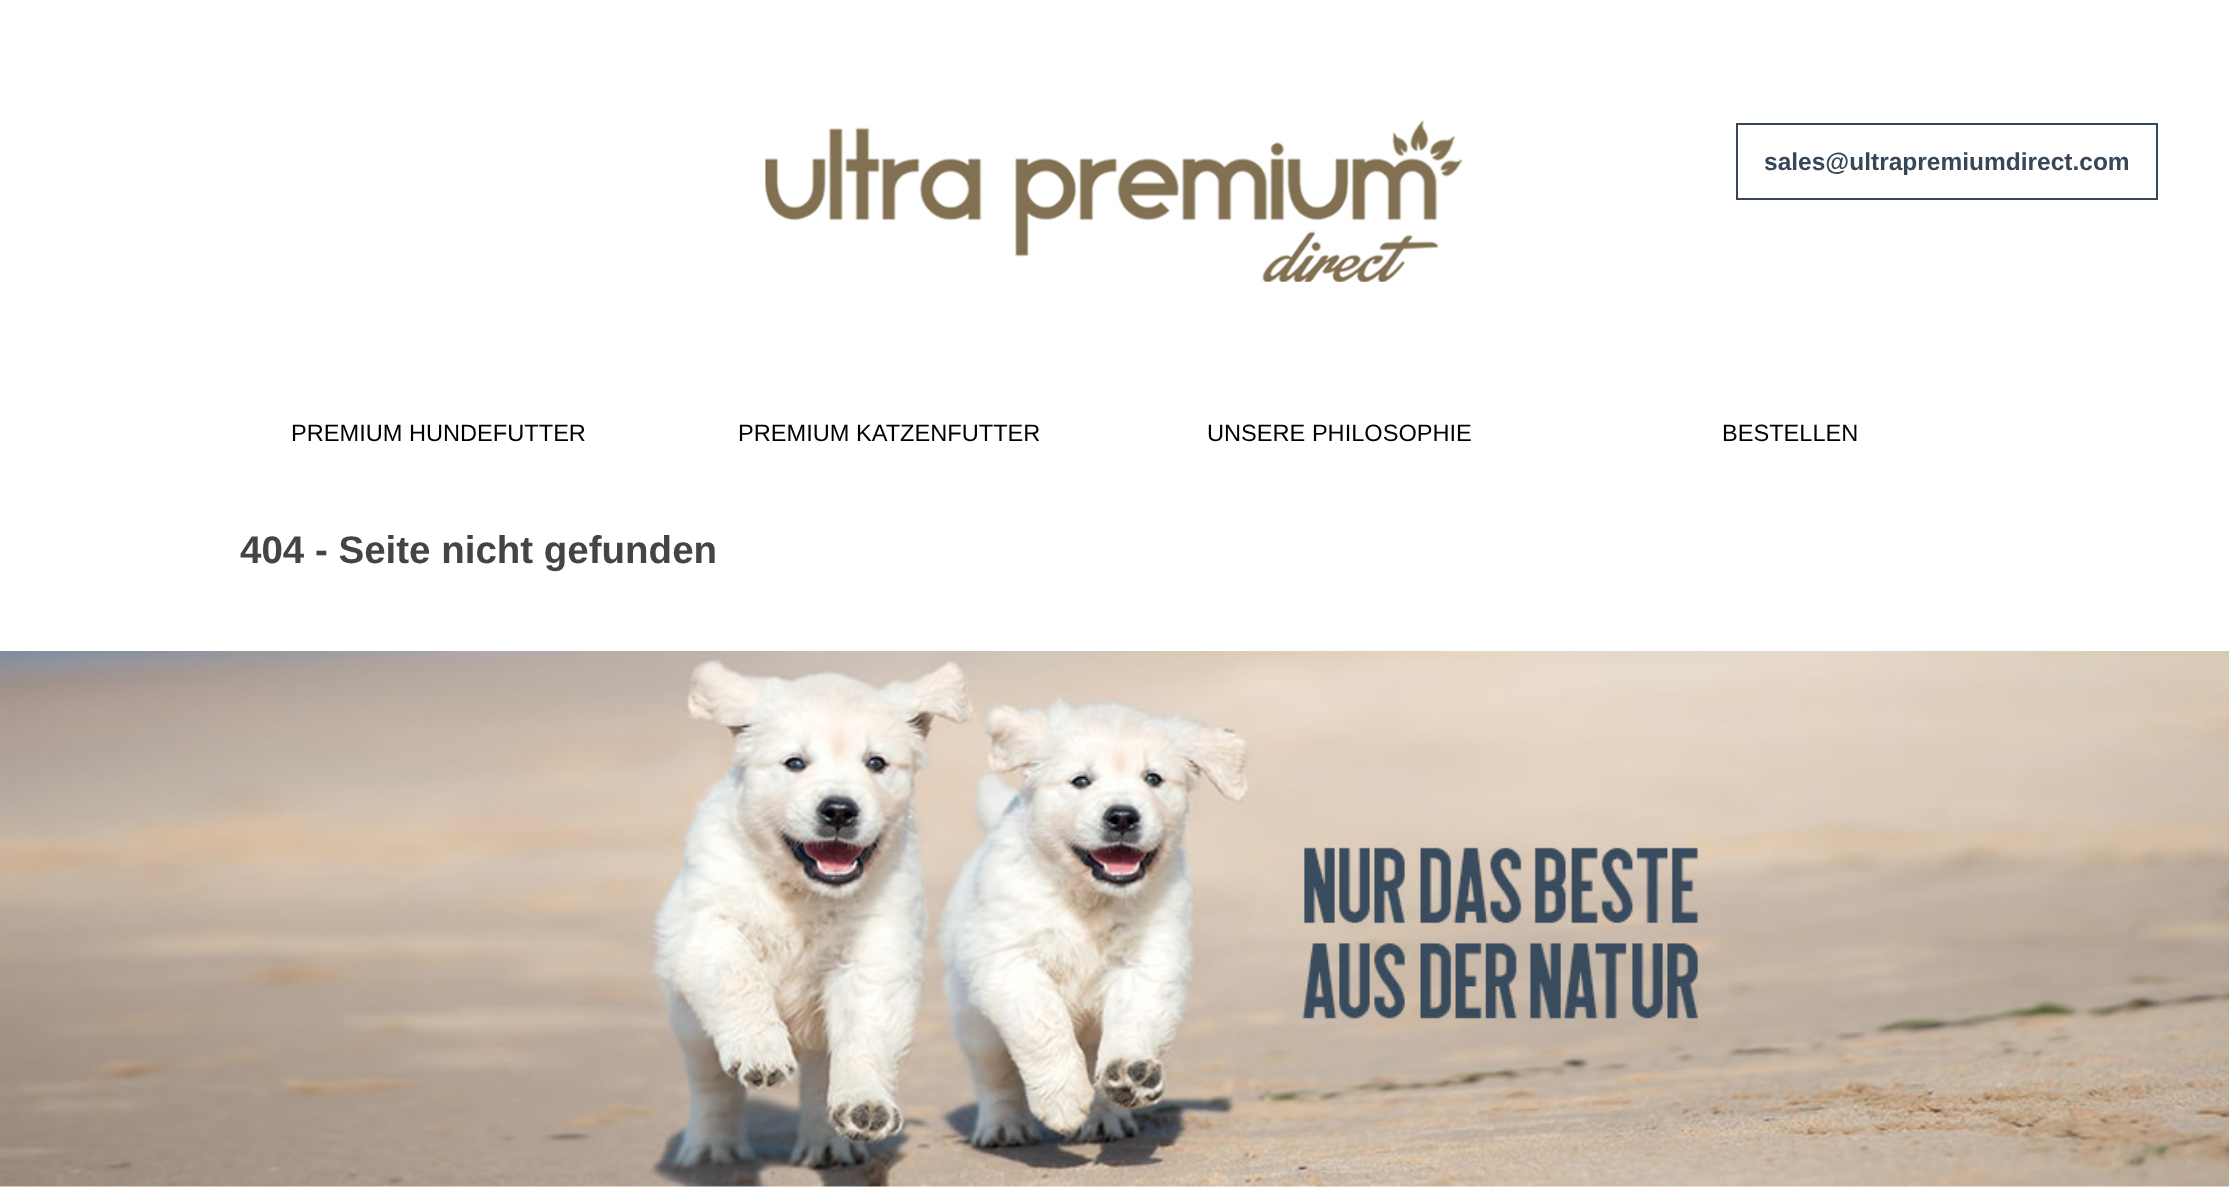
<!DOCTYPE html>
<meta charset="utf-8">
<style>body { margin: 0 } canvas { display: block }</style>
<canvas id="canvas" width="2229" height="1196"></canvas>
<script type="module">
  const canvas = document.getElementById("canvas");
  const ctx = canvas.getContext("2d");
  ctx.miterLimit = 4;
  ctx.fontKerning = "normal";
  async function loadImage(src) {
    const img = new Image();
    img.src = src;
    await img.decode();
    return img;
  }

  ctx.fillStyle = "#ffffff";
  ctx.fillRect(0, 0, 2229, 1196);
  ctx.strokeStyle = "#374757";
  ctx.lineWidth = 2;
  ctx.strokeRect(1737, 124, 420, 75);
  ctx.font = "bold 24.5px Liberation Sans";
  ctx.fillStyle = "#374757";
  ctx.fillText("sales@ultrapremiumdirect.com", 1764, 170);
  ctx.drawImage(await loadImage("img1.png"), 765, 120, 698, 162);
  ctx.font = "23.6px Liberation Sans";
  ctx.fillStyle = "#000000";
  ctx.fillText("PREMIUM HUNDEFUTTER", 291, 441);
  ctx.fillText("PREMIUM KATZENFUTTER", 738, 441);
  ctx.fillText("UNSERE PHILOSOPHIE", 1207, 441);
  ctx.fillText("BESTELLEN", 1722, 441);
  ctx.font = "bold 38.5px Liberation Sans";
  ctx.fillStyle = "#444444";
  ctx.fillText("404 - Seite nicht gefunden", 240, 563);
  ctx.drawImage(await loadImage("img2.png"), 0, 651, 2229, 536);
</script>
